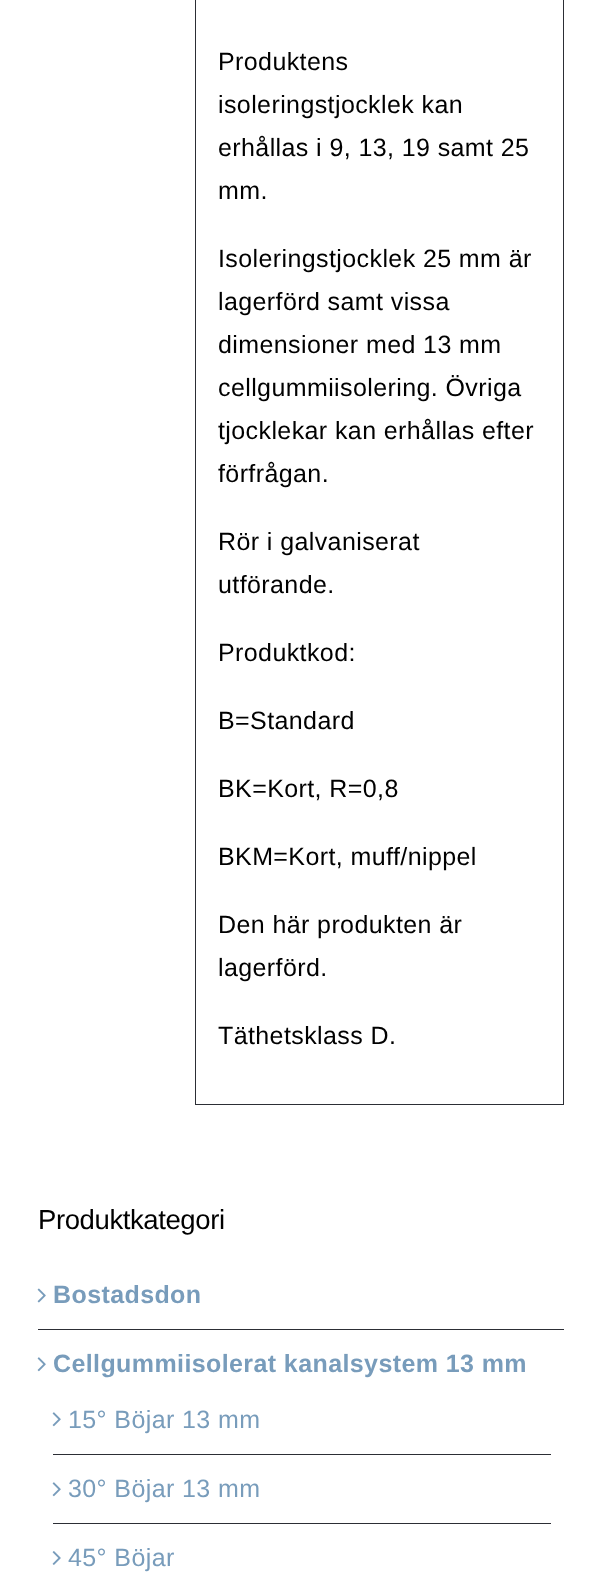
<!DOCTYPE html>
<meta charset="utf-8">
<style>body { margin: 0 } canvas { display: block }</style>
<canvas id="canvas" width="601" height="1574"></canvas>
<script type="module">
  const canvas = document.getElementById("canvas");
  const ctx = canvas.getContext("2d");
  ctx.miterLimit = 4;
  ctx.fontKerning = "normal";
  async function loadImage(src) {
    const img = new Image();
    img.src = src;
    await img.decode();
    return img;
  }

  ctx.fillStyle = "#ffffff";
  ctx.fillRect(0, 0, 601, 1574);
  ctx.strokeStyle = "#2c2e35";
  ctx.strokeRect(195.5, -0.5, 368, 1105);
  ctx.letterSpacing = "0.4px";
  ctx.font = "25px Liberation Sans";
  ctx.fillStyle = "#000000";
  ctx.fillText("Produktens", 218, 70);
  ctx.fillText("isoleringstjocklek kan", 218, 113);
  ctx.fillText("erhållas i 9, 13, 19 samt 25", 218, 156);
  ctx.fillText("mm.", 218, 199);
  ctx.fillText("Isoleringstjocklek 25 mm är", 218, 267);
  ctx.fillText("lagerförd samt vissa", 218, 310);
  ctx.fillText("dimensioner med 13 mm", 218, 353);
  ctx.fillText("cellgummiisolering. Övriga", 218, 396);
  ctx.fillText("tjocklekar kan erhållas efter", 218, 439);
  ctx.fillText("förfrågan.", 218, 482);
  ctx.fillText("Rör i galvaniserat", 218, 550);
  ctx.fillText("utförande.", 218, 593);
  ctx.fillText("Produktkod:", 218, 661);
  ctx.fillText("B=Standard", 218, 729);
  ctx.fillText("BK=Kort, R=0,8", 218, 797);
  ctx.fillText("BKM=Kort, muff/nippel", 218, 865);
  ctx.fillText("Den här produkten är", 218, 933);
  ctx.fillText("lagerförd.", 218, 976);
  ctx.fillText("Täthetsklass D.", 218, 1044);
  ctx.letterSpacing = "-0.4px";
  ctx.font = "27.5px Liberation Sans";
  ctx.fillText("Produktkategori", 38, 1229);
  ctx.fillStyle = "#2c2e35";
  ctx.fillRect(38, 1329, 526, 1);
  ctx.drawImage(await loadImage("img1.png"), 37, 1288, 9, 15);
  ctx.letterSpacing = "0.4px";
  ctx.font = "bold 25px Liberation Sans";
  ctx.fillStyle = "#789cbb";
  ctx.fillText("Bostadsdon", 53, 1303);
  ctx.drawImage(await loadImage("img2.png"), 37, 1357, 9, 15);
  ctx.fillText("Cellgummiisolerat kanalsystem 13 mm", 53, 1372);
  ctx.fillStyle = "#2c2e35";
  ctx.fillRect(53, 1454, 498, 1);
  ctx.drawImage(await loadImage("img2.png"), 52, 1412, 9, 15);
  ctx.font = "25px Liberation Sans";
  ctx.fillStyle = "#789cbb";
  ctx.fillText("15° Böjar 13 mm", 68, 1428);
  ctx.fillStyle = "#2c2e35";
  ctx.fillRect(53, 1523, 498, 1);
  ctx.drawImage(await loadImage("img2.png"), 52, 1482, 9, 15);
  ctx.fillStyle = "#789cbb";
  ctx.fillText("30° Böjar 13 mm", 68, 1497);
  ctx.drawImage(await loadImage("img3.png"), 52, 1551, 9, 14);
  ctx.fillText("45° Böjar", 68, 1566);
</script>
